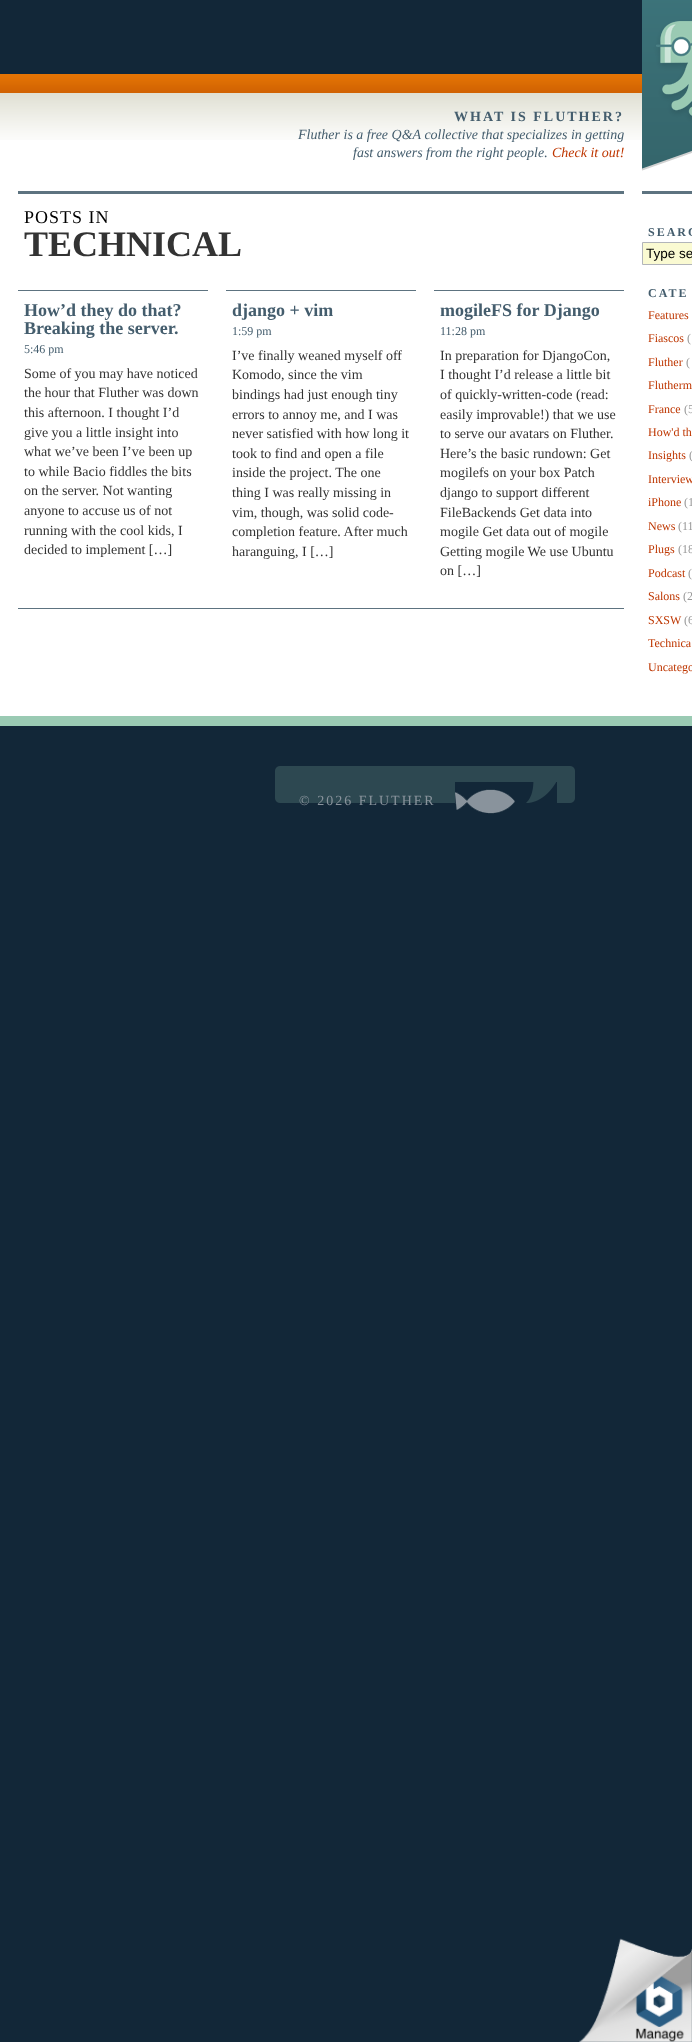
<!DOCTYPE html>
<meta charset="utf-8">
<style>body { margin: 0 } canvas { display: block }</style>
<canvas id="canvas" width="692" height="2042"></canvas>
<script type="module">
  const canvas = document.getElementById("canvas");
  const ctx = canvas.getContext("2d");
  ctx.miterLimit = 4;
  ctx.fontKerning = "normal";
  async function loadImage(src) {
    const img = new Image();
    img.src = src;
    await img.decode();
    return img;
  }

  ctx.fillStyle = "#122738";
  ctx.fillRect(0, 0, 692, 2042);
  ctx.fillStyle = "#ffffff";
  ctx.fillRect(0, 140, 692, 576);
  ctx.drawImage(await loadImage("img1.png"), 642, 0, 50, 171);
  ctx.drawImage(await loadImage("img2.png"), 0, 74, 642, 66);
  ctx.fillStyle = "#9acab3";
  ctx.fillRect(0, 716, 692, 10);
  ctx.letterSpacing = "2px";
  ctx.font = "bold 14px Liberation Serif";
  ctx.fillStyle = "#445d6d";
  ctx.fillText("WHAT IS FLUTHER?", 454, 121);
  ctx.letterSpacing = "0px";
  ctx.font = "italic 14px Liberation Serif";
  ctx.fillText("Fluther is a free Q&A collective that specializes in getting", 298, 139);
  ctx.fillText("fast answers from the right people.", 353, 157);
  ctx.fillStyle = "#be3600";
  ctx.fillText("Check it out!", 552, 157);
  ctx.fillStyle = "#5d7380";
  ctx.fillRect(18, 191, 606, 3);
  ctx.letterSpacing = "1px";
  ctx.font = "18px Liberation Serif";
  ctx.fillStyle = "#000000";
  ctx.fillText("POSTS IN", 24, 223);
  ctx.letterSpacing = "0px";
  ctx.font = "bold 36px Liberation Serif";
  ctx.fillStyle = "#333333";
  ctx.fillText("TECHNICAL", 24, 256);
  ctx.fillStyle = "#5d7380";
  ctx.fillRect(18, 290, 190, 1);
  ctx.font = "bold 18px Liberation Serif";
  ctx.fillStyle = "#445d6d";
  ctx.fillText("How’d they do that?", 24, 316);
  ctx.fillText("Breaking the server.", 24, 334);
  ctx.font = "12px Liberation Serif";
  ctx.fillText("5:46 pm", 24, 353);
  ctx.font = "14px Liberation Serif";
  ctx.fillStyle = "#333333";
  ctx.fillText("Some of you may have noticed", 24, 378);
  ctx.fillText("the hour that Fluther was down", 24, 397);
  ctx.fillText("this afternoon. I thought I’d", 24, 417);
  ctx.fillText("give you a little insight into", 24, 437);
  ctx.fillText("what we’ve been I’ve been up", 24, 456);
  ctx.fillText("to while Bacio fiddles the bits", 24, 476);
  ctx.fillText("on the server. Not wanting", 24, 495);
  ctx.fillText("anyone to accuse us of not", 24, 515);
  ctx.fillText("running with the cool kids, I", 24, 535);
  ctx.fillText("decided to implement […]", 24, 554);
  ctx.fillStyle = "#5d7380";
  ctx.fillRect(226, 290, 190, 1);
  ctx.font = "bold 18px Liberation Serif";
  ctx.fillStyle = "#445d6d";
  ctx.fillText("django + vim", 232, 316);
  ctx.font = "12px Liberation Serif";
  ctx.fillText("1:59 pm", 232, 335);
  ctx.font = "14px Liberation Serif";
  ctx.fillStyle = "#333333";
  ctx.fillText("I’ve finally weaned myself off", 232, 360);
  ctx.fillText("Komodo, since the vim", 232, 379);
  ctx.fillText("bindings had just enough tiny", 232, 399);
  ctx.fillText("errors to annoy me, and I was", 232, 419);
  ctx.fillText("never satisfied with how long it", 232, 438);
  ctx.fillText("took to find and open a file", 232, 458);
  ctx.fillText("inside the project. The one", 232, 477);
  ctx.fillText("thing I was really missing in", 232, 497);
  ctx.fillText("vim, though, was solid code-", 232, 517);
  ctx.fillText("completion feature. After much", 232, 536);
  ctx.fillText("haranguing, I […]", 232, 556);
  ctx.fillStyle = "#5d7380";
  ctx.fillRect(434, 290, 190, 1);
  ctx.font = "bold 18px Liberation Serif";
  ctx.fillStyle = "#445d6d";
  ctx.fillText("mogileFS for Django", 440, 316);
  ctx.font = "12px Liberation Serif";
  ctx.fillText("11:28 pm", 440, 335);
  ctx.font = "14px Liberation Serif";
  ctx.fillStyle = "#333333";
  ctx.fillText("In preparation for DjangoCon,", 440, 360);
  ctx.fillText("I thought I’d release a little bit", 440, 379);
  ctx.fillText("of quickly-written-code (read:", 440, 399);
  ctx.fillText("easily improvable!) that we use", 440, 419);
  ctx.fillText("to serve our avatars on Fluther.", 440, 438);
  ctx.fillText("Here’s the basic rundown: Get", 440, 458);
  ctx.fillText("mogilefs on your box Patch", 440, 477);
  ctx.fillText("django to support different", 440, 497);
  ctx.fillText("FileBackends Get data into", 440, 517);
  ctx.fillText("mogile Get data out of mogile", 440, 536);
  ctx.fillText("Getting mogile We use Ubuntu", 440, 556);
  ctx.fillText("on […]", 440, 575);
  ctx.fillStyle = "#5d7380";
  ctx.fillRect(18, 608, 606, 1);
  ctx.fillRect(642, 191, 50, 3);
  ctx.letterSpacing = "2px";
  ctx.font = "bold 12px Liberation Serif";
  ctx.fillStyle = "#445d6d";
  ctx.fillText("SEARC", 648, 236);
  ctx.fillStyle = "#fafad2";
  ctx.beginPath();
  ctx.rect(642.5, 242.5, 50, 22);
  ctx.fill();
  ctx.strokeStyle = "#b2b5ba";
  ctx.stroke();
  ctx.letterSpacing = "0px";
  ctx.font = "13.5px Liberation Sans";
  ctx.fillStyle = "#000000";
  ctx.fillText("Type se", 646, 258);
  ctx.letterSpacing = "2px";
  ctx.font = "bold 12px Liberation Serif";
  ctx.fillStyle = "#445d6d";
  ctx.fillText("CATE", 648, 297);
  ctx.letterSpacing = "0px";
  ctx.font = "12px Liberation Serif";
  ctx.fillStyle = "#be3600";
  ctx.fillText("Features", 648, 319);
  ctx.fillText("Fiascos", 648, 342);
  ctx.fillStyle = "#999999";
  ctx.fillText("(", 687, 342);
  ctx.fillStyle = "#be3600";
  ctx.fillText("Fluther", 648, 366);
  ctx.fillStyle = "#999999";
  ctx.fillText("(", 686, 366);
  ctx.fillStyle = "#be3600";
  ctx.fillText("Flutherm", 648, 389);
  ctx.fillText("France", 648, 413);
  ctx.fillStyle = "#999999";
  ctx.fillText("(5", 684, 413);
  ctx.fillStyle = "#be3600";
  ctx.fillText("How'd th", 648, 436);
  ctx.fillText("Insights", 648, 459);
  ctx.fillStyle = "#999999";
  ctx.fillText("(", 689, 459);
  ctx.fillStyle = "#be3600";
  ctx.fillText("Interview", 648, 483);
  ctx.fillText("iPhone", 648, 506);
  ctx.fillStyle = "#999999";
  ctx.fillText("(1", 684, 506);
  ctx.fillStyle = "#be3600";
  ctx.fillText("News", 648, 530);
  ctx.fillStyle = "#999999";
  ctx.fillText("(11", 678, 530);
  ctx.fillStyle = "#be3600";
  ctx.fillText("Plugs", 648, 553);
  ctx.fillStyle = "#999999";
  ctx.fillText("(18", 678, 553);
  ctx.fillStyle = "#be3600";
  ctx.fillText("Podcast", 648, 577);
  ctx.fillStyle = "#999999";
  ctx.fillText("(", 688, 577);
  ctx.fillStyle = "#be3600";
  ctx.fillText("Salons", 648, 600);
  ctx.fillStyle = "#999999";
  ctx.fillText("(2", 683, 600);
  ctx.fillStyle = "#be3600";
  ctx.fillText("SXSW", 648, 624);
  ctx.fillStyle = "#999999";
  ctx.fillText("(6", 684, 624);
  ctx.fillStyle = "#be3600";
  ctx.fillText("Technica", 648, 647);
  ctx.fillText("Uncatego", 648, 671);
  ctx.drawImage(await loadImage("img3.png"), 275, 766, 300, 37);
  ctx.drawImage(await loadImage("img4.png"), 455, 782, 102, 32);
  ctx.letterSpacing = "2px";
  ctx.font = "14px Liberation Serif";
  ctx.fillStyle = "#89939c";
  ctx.fillText("© 2026 FLUTHER", 299, 805);
  ctx.drawImage(await loadImage("img5.png"), 579, 1938, 113, 104);
</script>
